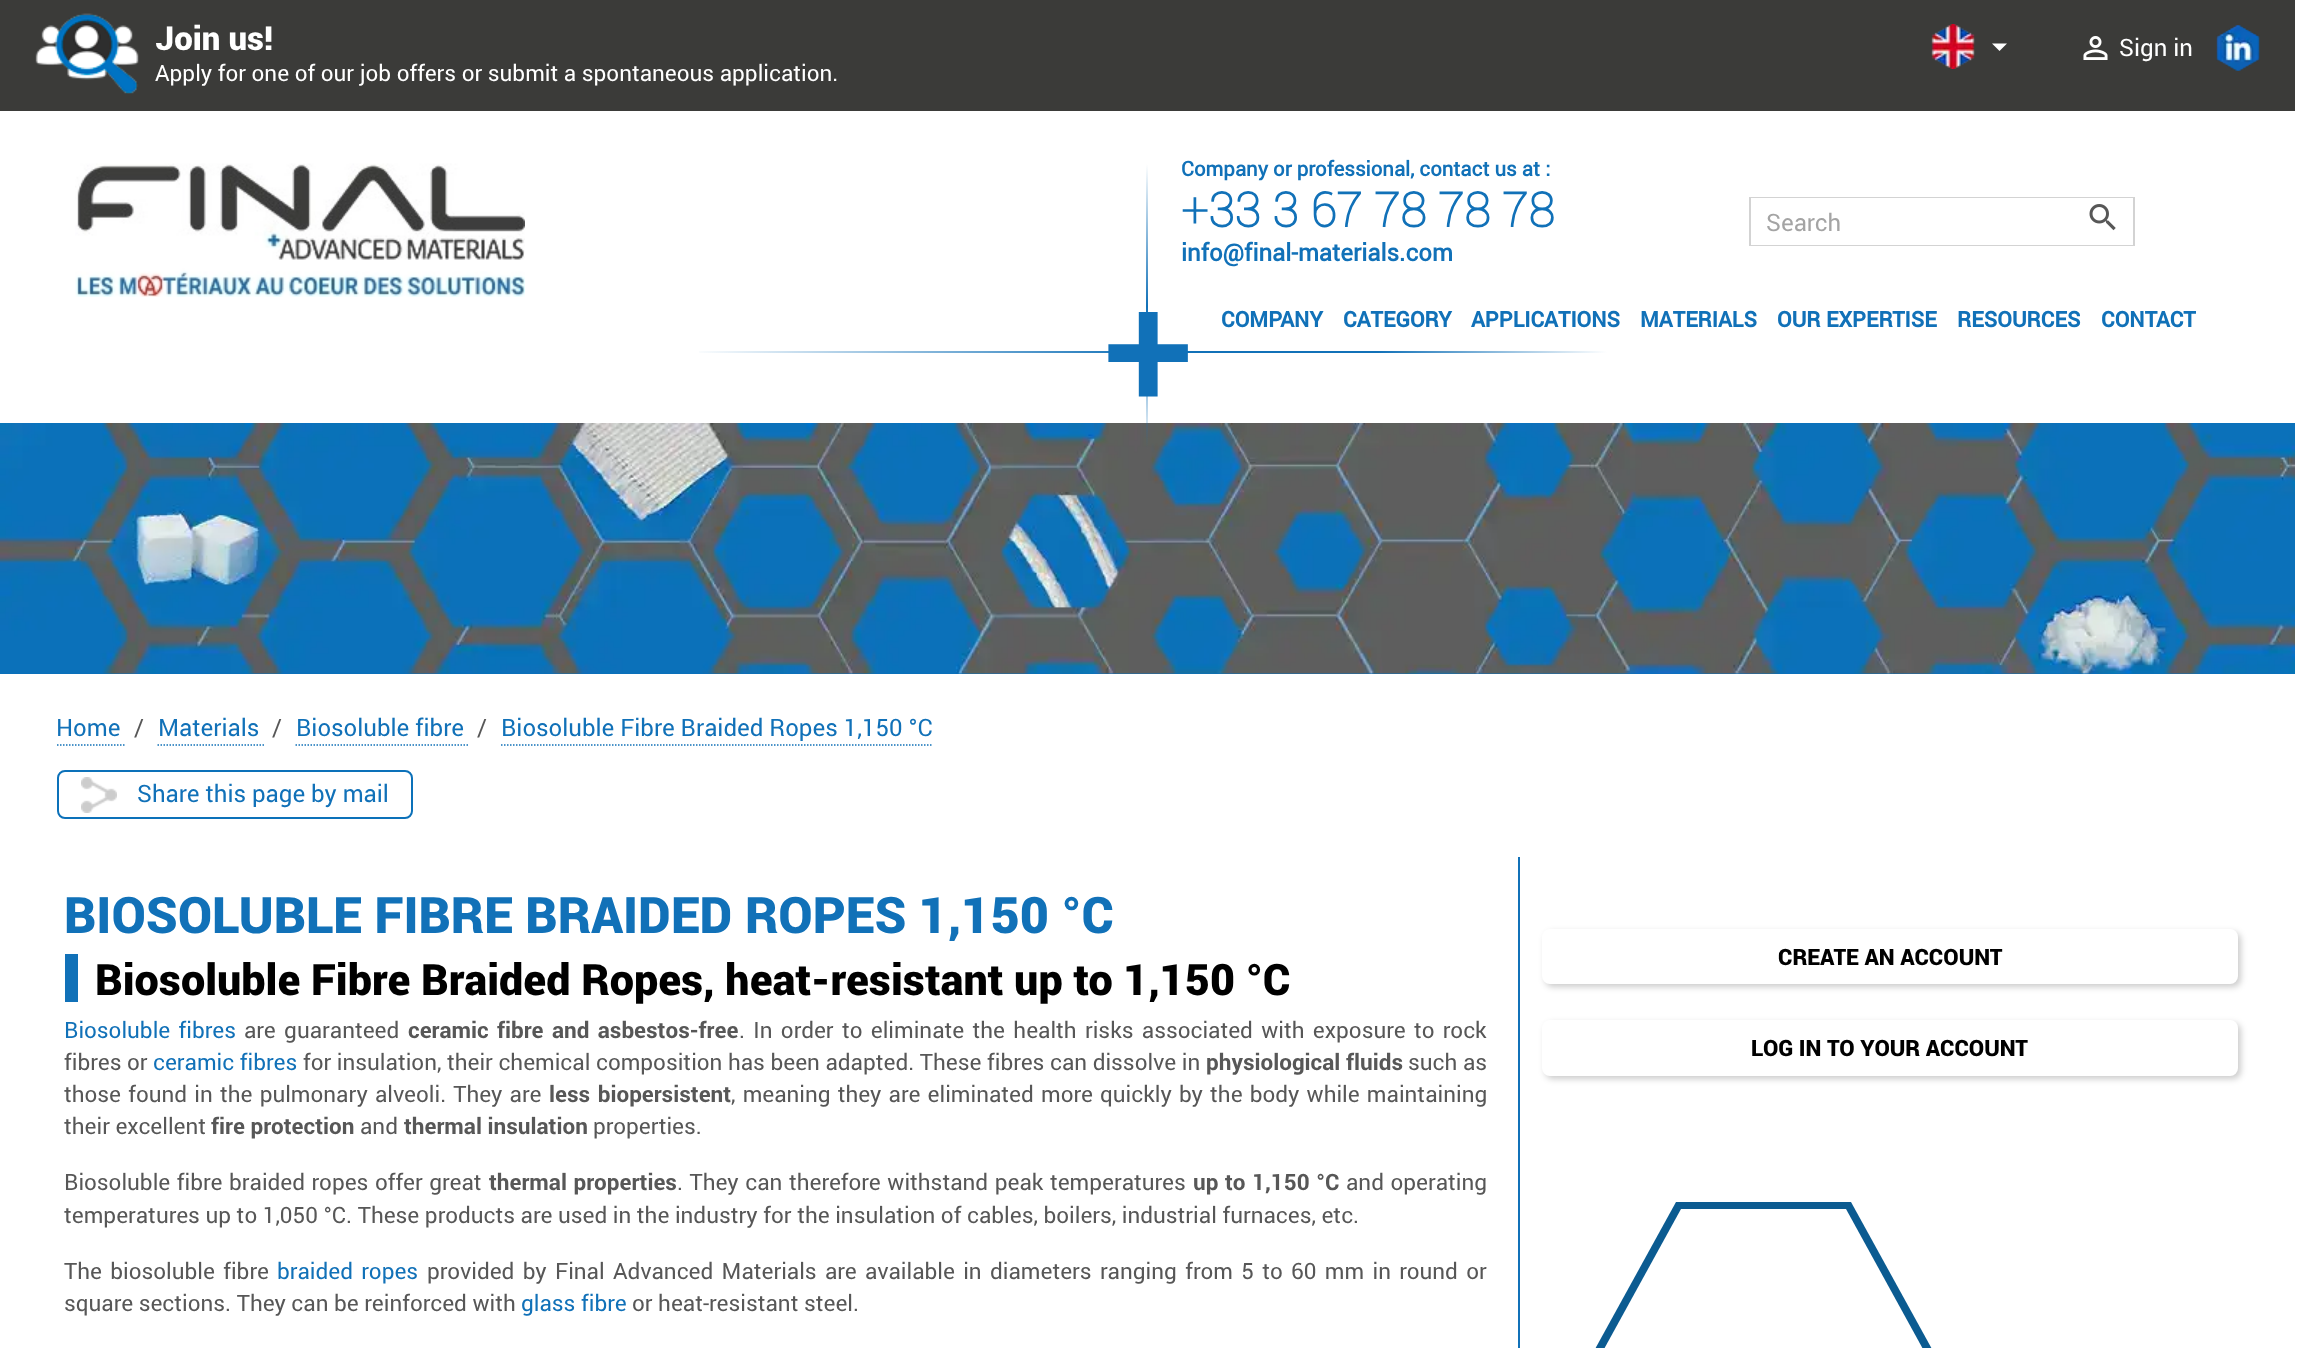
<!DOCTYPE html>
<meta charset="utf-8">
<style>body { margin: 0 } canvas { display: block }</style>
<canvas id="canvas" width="2317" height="1348"></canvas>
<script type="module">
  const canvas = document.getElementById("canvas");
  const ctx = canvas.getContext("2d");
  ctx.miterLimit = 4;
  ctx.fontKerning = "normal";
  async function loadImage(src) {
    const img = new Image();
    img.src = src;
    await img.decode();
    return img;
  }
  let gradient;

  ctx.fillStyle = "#ffffff";
  ctx.fillRect(0, 0, 2317, 1348);
  ctx.fillStyle = "#3b3b39";
  ctx.fillRect(0, 0, 2295, 111);
  ctx.drawImage(await loadImage("img1.png"), 35, 13, 104, 81);
  ctx.font = "900 33px Roboto";
  ctx.fillStyle = "#ffffff";
  ctx.fillText("Join us!", 155, 50);
  ctx.font = "22.5px Roboto";
  ctx.fillText("Apply for one of our job offers or submit a spontaneous application.", 155, 81);
  ctx.drawImage(await loadImage("img2.png"), 1931, 24, 44, 45);
  ctx.beginPath();
  ctx.moveTo(1992, 43.5);
  ctx.lineTo(2007, 43.5);
  ctx.lineTo(1999.5, 51);
  ctx.closePath();
  ctx.fill();
  ctx.drawImage(await loadImage("img3.png"), 2083, 36, 25, 24);
  ctx.font = "24px Roboto";
  ctx.fillText("Sign in", 2119, 56);
  ctx.drawImage(await loadImage("img4.png"), 2216, 25, 44, 46);
  ctx.drawImage(await loadImage("img5.png"), 2216, 25, 44, 46);
  ctx.font = "500 163px Roboto";
  ctx.fillStyle = "#1171b8";
  ctx.fillText("+", 1103, 408);
  ctx.fillStyle = "#0b71ba";
  ctx.fillRect(0, 673, 2295, 1);
  ctx.drawImage(await loadImage("img8.png"), 0, 423, 2295, 251);
  gradient = ctx.createLinearGradient(1147, 164, 1147, 449);
  gradient.addColorStop(0, "rgba(17, 113, 184, 0)");
  gradient.addColorStop(0.5, "#1171b8");
  gradient.addColorStop(1, "rgba(17, 113, 184, 0)");
  ctx.fillStyle = gradient;
  ctx.fillRect(1146, 164, 2, 285);
  gradient = ctx.createLinearGradient(689, 352, 1607, 352);
  gradient.addColorStop(0, "rgba(17, 113, 184, 0)");
  gradient.addColorStop(0.5, "#1171b8");
  gradient.addColorStop(0.75, "#1171b8");
  gradient.addColorStop(1, "rgba(17, 113, 184, 0)");
  ctx.fillStyle = gradient;
  ctx.fillRect(699, 351, 908, 2);
  ctx.drawImage(await loadImage("img6.png"), 75, 163, 450, 134);
  ctx.font = "bold 20.4px 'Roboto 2'";
  ctx.fillStyle = "#1171b8";
  ctx.fillText("Company or professional, contact us at :", 1181, 176);
  ctx.font = "bold 48px 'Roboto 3'";
  ctx.fillText("+33 3 67 78 78 78", 1181, 227);
  ctx.font = "bold 24px 'Roboto 2'";
  ctx.fillText("info@final-materials.com", 1181, 261);
  ctx.strokeStyle = "#d3d3d3";
  ctx.lineWidth = 2;
  ctx.strokeRect(1750, 198, 384, 47);
  ctx.fillStyle = "#ffffff";
  ctx.fillRect(1751, 198, 382, 47);
  ctx.font = "24px Roboto";
  ctx.fillStyle = "#a4a4a4";
  ctx.fillText("Search", 1766, 231);
  ctx.drawImage(await loadImage("img7.png"), 2089, 204, 27, 27);
  ctx.font = "bold 21.5px 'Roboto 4'";
  ctx.fillStyle = "#1171b8";
  ctx.fillText("COMPANY", 1221, 327);
  ctx.fillText("CATEGORY", 1343, 327);
  ctx.fillText("APPLICATIONS", 1471, 327);
  ctx.fillText("MATERIALS", 1640, 327);
  ctx.fillText("OUR EXPERTISE", 1777, 327);
  ctx.fillText("RESOURCES", 1957, 327);
  ctx.fillText("CONTACT", 2101, 327);
  ctx.font = "24px Roboto";
  ctx.fillText("Home", 56, 736);
  ctx.beginPath();
  ctx.moveTo(57, 745);
  ctx.lineTo(120, 745);
  ctx.strokeStyle = "#1171b8";
  ctx.lineWidth = 1.5;
  ctx.setLineDash([1.5, 1.5]);
  ctx.stroke();
  ctx.beginPath();
  ctx.moveTo(120, 745);
  ctx.lineTo(121.5, 745);
  ctx.moveTo(123, 745);
  ctx.lineTo(124.5, 745);
  ctx.setLineDash([]);
  ctx.stroke();
  ctx.fillStyle = "#575757";
  ctx.fillText("/", 134, 736);
  ctx.fillStyle = "#1171b8";
  ctx.fillText("Materials", 158, 736);
  ctx.beginPath();
  ctx.moveTo(157.5, 745);
  ctx.lineTo(259.5, 745);
  ctx.setLineDash([1.5, 1.5]);
  ctx.stroke();
  ctx.beginPath();
  ctx.moveTo(259.5, 745);
  ctx.lineTo(261, 745);
  ctx.moveTo(262.5, 745);
  ctx.lineTo(264, 745);
  ctx.setLineDash([]);
  ctx.stroke();
  ctx.fillStyle = "#575757";
  ctx.fillText("/", 272, 736);
  ctx.fillStyle = "#1171b8";
  ctx.fillText("Biosoluble fibre", 296, 736);
  ctx.beginPath();
  ctx.moveTo(295.5, 745);
  ctx.lineTo(463.5, 745);
  ctx.setLineDash([1.5, 1.5]);
  ctx.stroke();
  ctx.beginPath();
  ctx.moveTo(463.5, 745);
  ctx.lineTo(465, 745);
  ctx.moveTo(466.5, 745);
  ctx.lineTo(468, 745);
  ctx.setLineDash([]);
  ctx.stroke();
  ctx.fillStyle = "#575757";
  ctx.fillText("/", 477, 736);
  ctx.fillStyle = "#1171b8";
  ctx.fillText("Biosoluble Fibre Braided Ropes 1,150 °C", 501, 736);
  ctx.beginPath();
  ctx.moveTo(501, 745);
  ctx.lineTo(933, 745);
  ctx.setLineDash([1.5, 1.5]);
  ctx.stroke();
  ctx.beginPath();
  ctx.roundRect(58, 771, 354, 47, 7);
  ctx.strokeStyle = "#0c71b9";
  ctx.lineWidth = 2;
  ctx.setLineDash([]);
  ctx.stroke();
  ctx.drawImage(await loadImage("img9.png"), 81, 777, 36, 36);
  ctx.fillText("Share this page by mail", 137, 802);
  ctx.fillRect(1518, 857, 2, 491);
  ctx.font = "900 50.4px Roboto";
  ctx.fillText("BIOSOLUBLE FIBRE BRAIDED ROPES 1,150 °C", 64, 933);
  ctx.fillRect(65, 954, 13, 48);
  ctx.font = "900 43.2px Roboto";
  ctx.fillStyle = "#000000";
  ctx.fillText("Biosoluble Fibre Braided Ropes, heat-resistant up to 1,150 °C", 95, 995);
  ctx.wordSpacing = "2.75px";
  ctx.font = "22.5px Roboto";
  ctx.fillStyle = "#1171b8";
  ctx.fillText("Biosoluble fibres", 64, 1038);
  ctx.fillStyle = "#575757";
  ctx.fillText("are guaranteed", 244, 1038);
  ctx.font = "bold 22.5px Roboto";
  ctx.fillText("ceramic fibre and asbestos-free", 408, 1038);
  ctx.font = "22.5px Roboto";
  ctx.fillText(". In order to eliminate the health risks associated with exposure to rock", 739, 1038);
  ctx.wordSpacing = "0px";
  ctx.fillText("fibres or", 64, 1070);
  ctx.fillStyle = "#1171b8";
  ctx.fillText("ceramic fibres", 153, 1070);
  ctx.fillStyle = "#575757";
  ctx.fillText("for insulation, their chemical composition has been adapted. These fibres can dissolve in", 303, 1070);
  ctx.font = "bold 22.5px Roboto";
  ctx.fillText("physiological fluids", 1206, 1070);
  ctx.font = "22.5px Roboto";
  ctx.fillText("such as", 1408, 1070);
  ctx.wordSpacing = "1.6px";
  ctx.fillText("those found in the pulmonary alveoli. They are", 64, 1102);
  ctx.wordSpacing = "2px";
  ctx.font = "bold 22.5px Roboto";
  ctx.fillText("less biopersistent", 549, 1102);
  ctx.wordSpacing = "1.6px";
  ctx.font = "22.5px Roboto";
  ctx.fillText(", meaning they are eliminated more quickly by the body while maintaining", 731, 1102);
  ctx.wordSpacing = "0px";
  ctx.fillText("their excellent", 64, 1134);
  ctx.font = "bold 22.5px Roboto";
  ctx.fillText("fire protection", 211, 1134);
  ctx.font = "22.5px Roboto";
  ctx.fillText("and", 360, 1134);
  ctx.font = "bold 22.5px Roboto";
  ctx.fillText("thermal insulation", 404, 1134);
  ctx.font = "22.5px Roboto";
  ctx.fillText("properties.", 593, 1134);
  ctx.wordSpacing = "1px";
  ctx.fillText("Biosoluble fibre braided ropes offer great", 64, 1190);
  ctx.font = "bold 22.5px Roboto";
  ctx.fillText("thermal properties", 489, 1190);
  ctx.font = "22.5px Roboto";
  ctx.fillText(". They can therefore withstand peak temperatures", 677, 1190);
  ctx.font = "bold 22.5px Roboto";
  ctx.fillText("up to 1,150 °C", 1193, 1190);
  ctx.font = "22.5px Roboto";
  ctx.fillText("and operating", 1346, 1190);
  ctx.wordSpacing = "0px";
  ctx.fillText("temperatures up to 1,050 °C. These products are used in the industry for the insulation of cables, boilers, industrial furnaces, etc.", 64, 1223);
  ctx.wordSpacing = "2.75px";
  ctx.fillText("The biosoluble fibre", 64, 1279);
  ctx.fillStyle = "#1171b8";
  ctx.fillText("braided ropes", 277, 1279);
  ctx.fillStyle = "#575757";
  ctx.fillText("provided by Final Advanced Materials are available in diameters ranging from 5 to 60 mm in round or", 427, 1279);
  ctx.wordSpacing = "0px";
  ctx.fillText("square sections. They can be reinforced with", 64, 1311);
  ctx.fillStyle = "#1171b8";
  ctx.fillText("glass fibre", 521, 1311);
  ctx.fillStyle = "#575757";
  ctx.fillText("or heat-resistant steel.", 632, 1311);
  ctx.fillStyle = "rgba(0, 0, 0, 0.2)";
  ctx.filter = "blur(3px)";
  ctx.beginPath();
  ctx.roundRect(1545, 932, 696, 55, 8);
  ctx.fill();
  ctx.filter = "none";
  ctx.fillStyle = "#ffffff";
  ctx.beginPath();
  ctx.roundRect(1542, 929, 696, 55, 8);
  ctx.fill();
  ctx.font = "900 22.5px Roboto";
  ctx.fillStyle = "#000000";
  ctx.fillText("CREATE AN ACCOUNT", 1778, 965);
  ctx.fillStyle = "rgba(0, 0, 0, 0.2)";
  ctx.filter = "blur(3px)";
  ctx.beginPath();
  ctx.roundRect(1545, 1023, 696, 56, 8);
  ctx.fill();
  ctx.filter = "none";
  ctx.fillStyle = "#ffffff";
  ctx.beginPath();
  ctx.roundRect(1542, 1020, 696, 56, 8);
  ctx.fill();
  ctx.fillStyle = "#000000";
  ctx.fillText("LOG IN TO YOUR ACCOUNT", 1751, 1056);
  ctx.fillStyle = "#0b5b91";
  ctx.beginPath();
  ctx.moveTo(1851, 1202);
  ctx.lineTo(1938, 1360);
  ctx.lineTo(1851, 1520);
  ctx.lineTo(1676, 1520);
  ctx.lineTo(1589, 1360);
  ctx.lineTo(1676, 1202);
  ctx.closePath();
  ctx.fill();
  ctx.fillStyle = "#ffffff";
  ctx.beginPath();
  ctx.moveTo(1681, 1209);
  ctx.lineTo(1846, 1209);
  ctx.lineTo(1929, 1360);
  ctx.lineTo(1846, 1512);
  ctx.lineTo(1681, 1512);
  ctx.lineTo(1598, 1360);
  ctx.closePath();
  ctx.fill();
</script>
